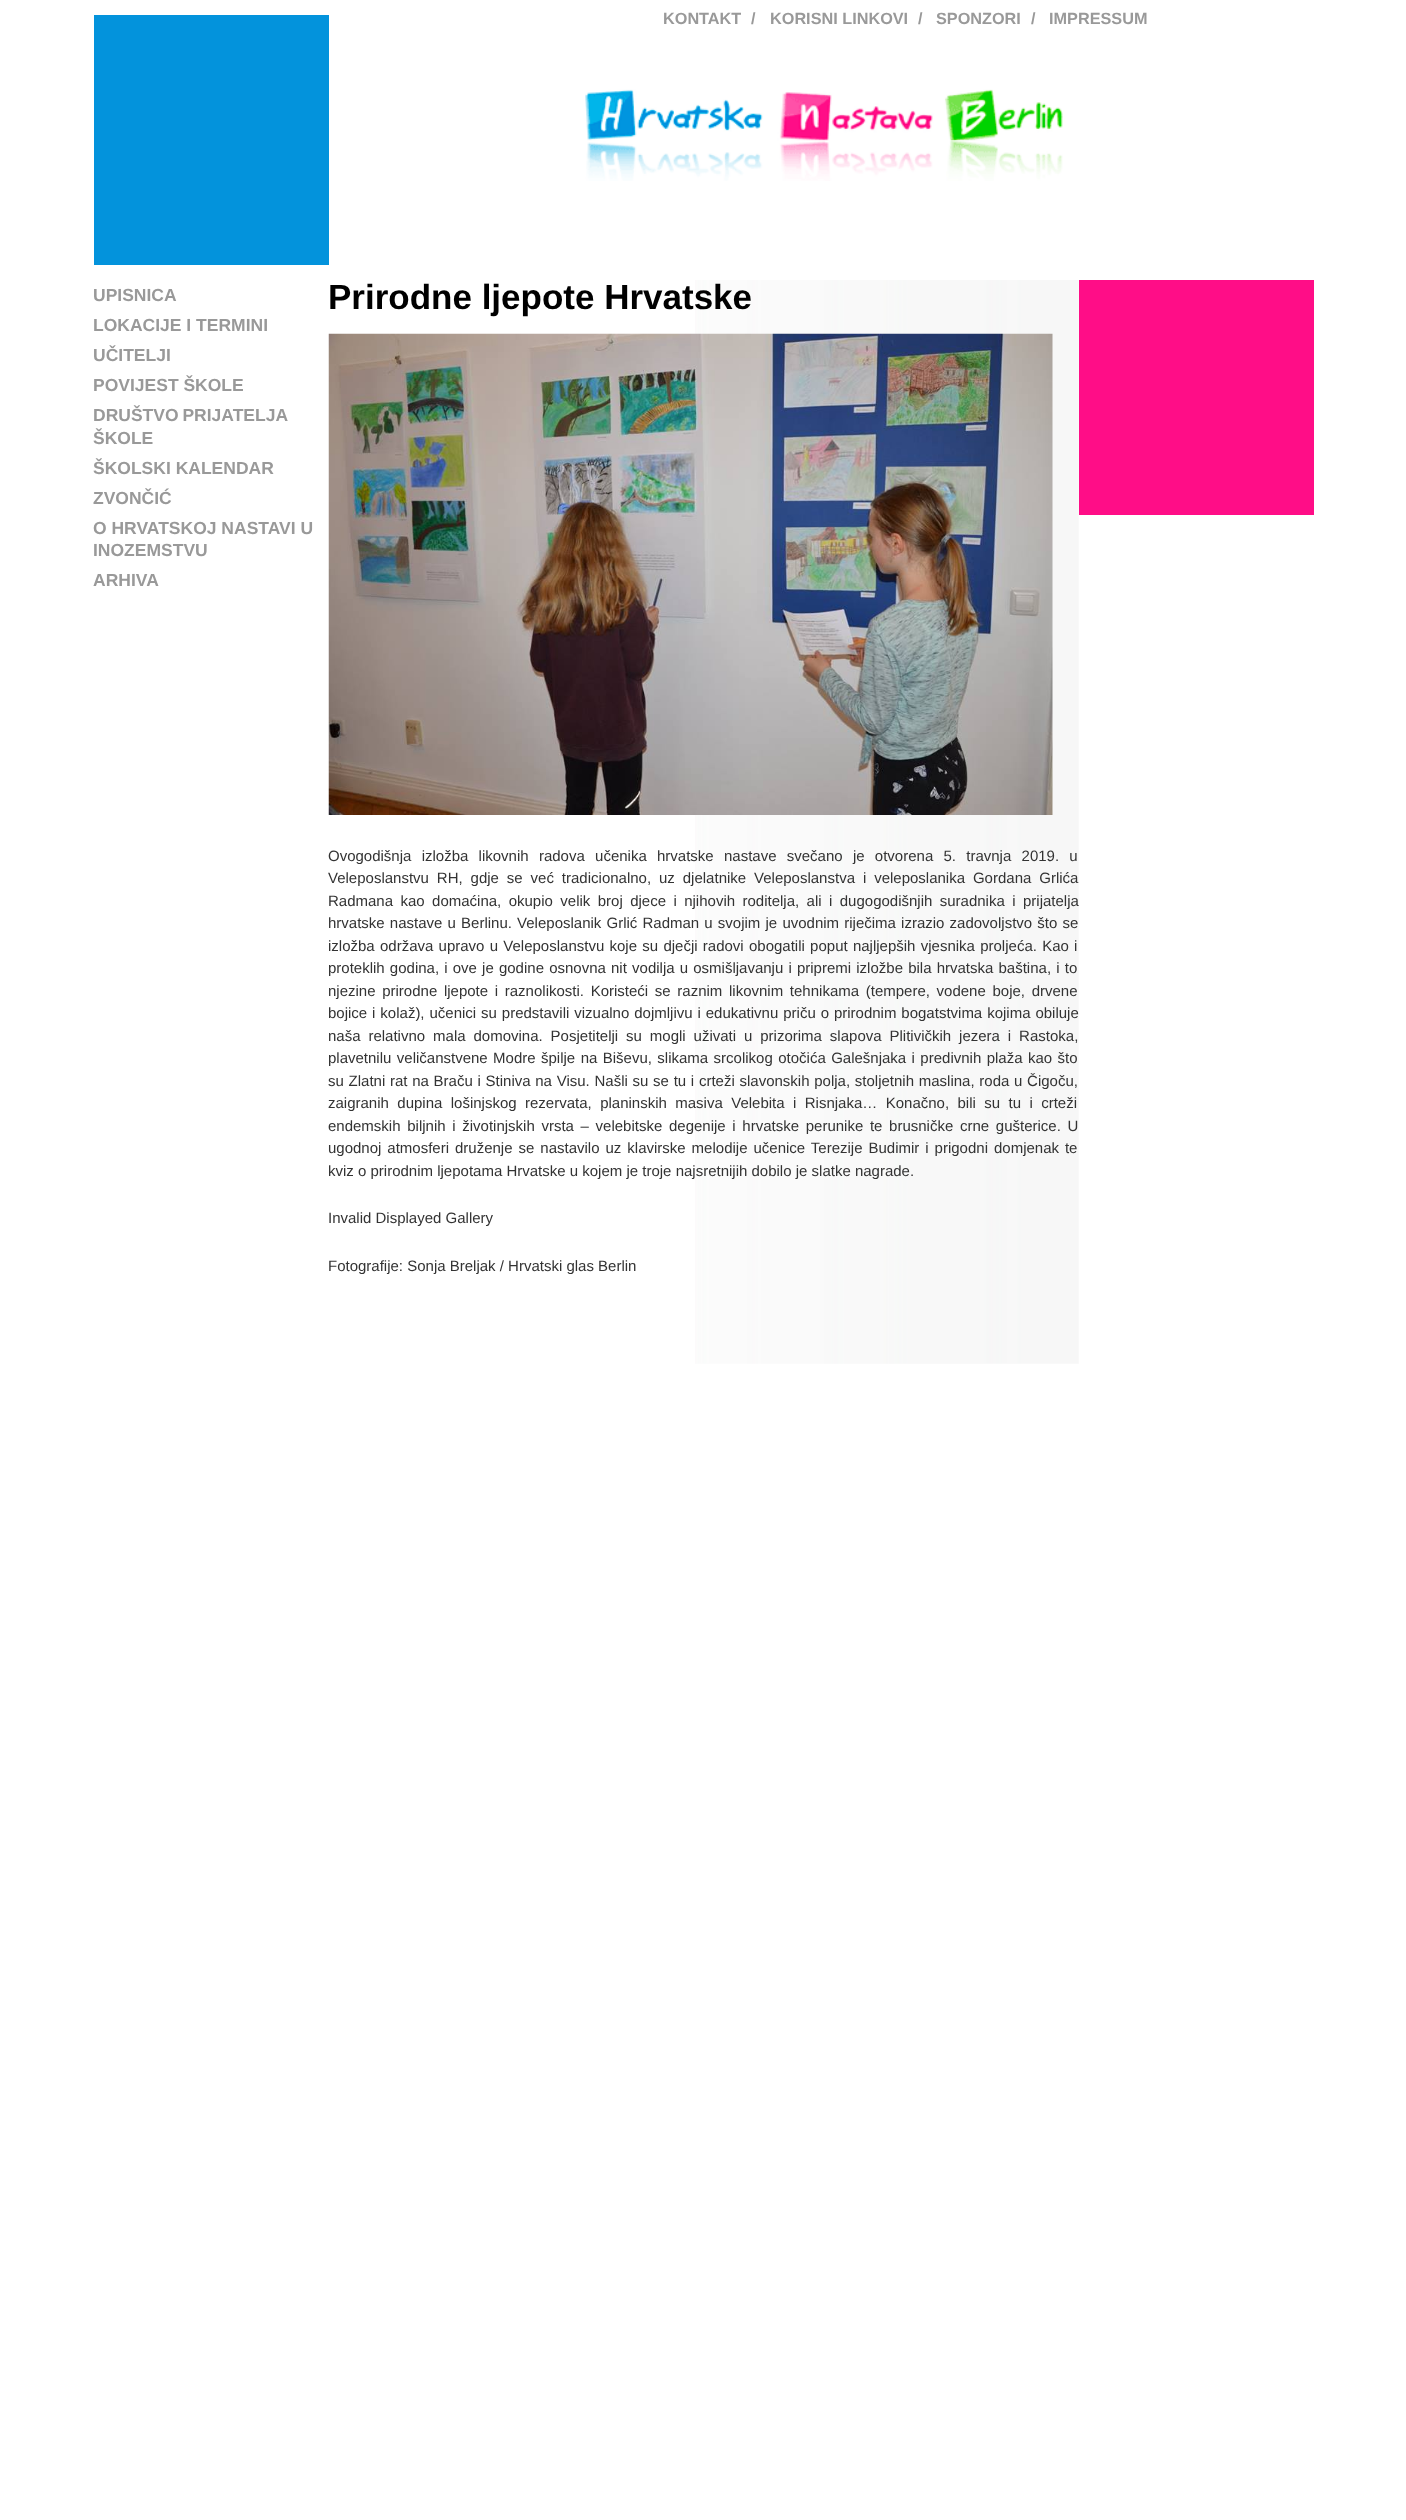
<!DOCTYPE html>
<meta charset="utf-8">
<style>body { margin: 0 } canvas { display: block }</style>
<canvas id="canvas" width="1406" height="2520"></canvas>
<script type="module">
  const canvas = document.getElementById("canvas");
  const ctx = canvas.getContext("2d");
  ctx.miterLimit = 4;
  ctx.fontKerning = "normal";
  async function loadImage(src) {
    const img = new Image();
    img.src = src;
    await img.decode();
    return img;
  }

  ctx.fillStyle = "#ffffff";
  ctx.fillRect(0, 0, 1406, 2520);
  ctx.fillStyle = "#0393dc";
  ctx.fillRect(94, 15, 235, 250);
  ctx.font = "bold 16.25px Liberation Sans";
  ctx.fillStyle = "#999999";
  ctx.fillText("KONTAKT", 663, 24);
  ctx.fillText("/", 751, 24);
  ctx.fillText("KORISNI LINKOVI", 770, 24);
  ctx.fillText("/", 918, 24);
  ctx.fillText("SPONZORI", 936, 24);
  ctx.fillText("/", 1031, 24);
  ctx.fillText("IMPRESSUM", 1049, 24);
  ctx.drawImage(await loadImage("img1.png"), 585, 89, 478, 92);
  ctx.font = "bold 17.5px Liberation Sans";
  ctx.fillText("UPISNICA", 93, 301);
  ctx.fillText("LOKACIJE I TERMINI", 93, 331);
  ctx.fillText("UČITELJI", 93, 361);
  ctx.fillText("POVIJEST ŠKOLE", 93, 391);
  ctx.wordSpacing = "-1px";
  ctx.fillText("DRUŠTVO PRIJATELJA", 93, 421);
  ctx.wordSpacing = "0px";
  ctx.fillText("ŠKOLE", 93, 444);
  ctx.fillText("ŠKOLSKI KALENDAR", 93, 474);
  ctx.fillText("ZVONČIĆ", 93, 504);
  ctx.fillText("O HRVATSKOJ NASTAVI U", 93, 534);
  ctx.fillText("INOZEMSTVU", 93, 556);
  ctx.fillText("ARHIVA", 93, 586);
  ctx.drawImage(await loadImage("img2.png"), 695, 280, 384, 1084);
  ctx.font = "bold 35px Liberation Sans";
  ctx.fillStyle = "#000000";
  ctx.fillText("Prirodne ljepote Hrvatske", 328, 309);
  ctx.drawImage(await loadImage("img3.png"), 328, 333, 725, 482);
  ctx.wordSpacing = "6.1px";
  ctx.font = "15px Liberation Sans";
  ctx.fillStyle = "#333333";
  ctx.fillText("Ovogodišnja izložba likovnih radova učenika hrvatske nastave svečano je otvorena 5. travnja 2019. u", 328, 861);
  ctx.wordSpacing = "3.75px";
  ctx.fillText("Veleposlanstvu RH, gdje se već tradicionalno, uz djelatnike Veleposlanstva i veleposlanika Gordana Grlića", 328, 883);
  ctx.wordSpacing = "3.25px";
  ctx.fillText("Radmana kao domaćina, okupio velik broj djece i njihovih roditelja, ali i dugogodišnjih suradnika i prijatelja", 328, 906);
  ctx.wordSpacing = "1px";
  ctx.fillText("hrvatske nastave u Berlinu. Veleposlanik Grlić Radman u svojim je uvodnim riječima izrazio zadovoljstvo što se", 328, 928);
  ctx.wordSpacing = "1.1px";
  ctx.fillText("izložba održava upravo u Veleposlanstvu koje su dječji radovi obogatili poput najljepših vjesnika proljeća. Kao i", 328, 951);
  ctx.wordSpacing = "1px";
  ctx.fillText("proteklih godina, i ove je godine osnovna nit vodilja u osmišljavanju i pripremi izložbe bila hrvatska baština, i to", 328, 973);
  ctx.wordSpacing = "2.5px";
  ctx.fillText("njezine prirodne ljepote i raznolikosti. Koristeći se raznim likovnim tehnikama (tempere, vodene boje, drvene", 328, 996);
  ctx.wordSpacing = "0.75px";
  ctx.fillText("bojice i kolaž), učenici su predstavili vizualno dojmljivu i edukativnu priču o prirodnim bogatstvima kojima obiluje", 328, 1018);
  ctx.wordSpacing = "3.75px";
  ctx.fillText("naša relativno mala domovina. Posjetitelji su mogli uživati u prizorima slapova Plitivičkih jezera i Rastoka,", 328, 1041);
  ctx.wordSpacing = "1.25px";
  ctx.fillText("plavetnilu veličanstvene Modre špilje na Biševu, slikama srcolikog otočića Galešnjaka i predivnih plaža kao što", 328, 1063);
  ctx.wordSpacing = "0.55px";
  ctx.fillText("su Zlatni rat na Braču i Stiniva na Visu. Našli su se tu i crteži slavonskih polja, stoljetnih maslina, roda u Čigoču,", 328, 1086);
  ctx.wordSpacing = "4.25px";
  ctx.fillText("zaigranih dupina lošinjskog rezervata, planinskih masiva Velebita i Risnjaka… Konačno, bili su tu i crteži", 328, 1108);
  ctx.wordSpacing = "2.5px";
  ctx.fillText("endemskih biljnih i životinjskih vrsta – velebitske degenije i hrvatske perunike te brusničke crne gušterice. U", 328, 1131);
  ctx.wordSpacing = "1.8px";
  ctx.fillText("ugodnoj atmosferi druženje se nastavilo uz klavirske melodije učenice Terezije Budimir i prigodni domjenak te", 328, 1153);
  ctx.wordSpacing = "0px";
  ctx.fillText("kviz o prirodnim ljepotama Hrvatske u kojem je troje najsretnijih dobilo je slatke nagrade.", 328, 1176);
  ctx.fillText("Invalid Displayed Gallery", 328, 1223);
  ctx.fillText("Fotografije: Sonja Breljak / Hrvatski glas Berlin", 328, 1271);
  ctx.fillStyle = "#ff0d87";
  ctx.fillRect(1079, 280, 235, 235);
</script>
